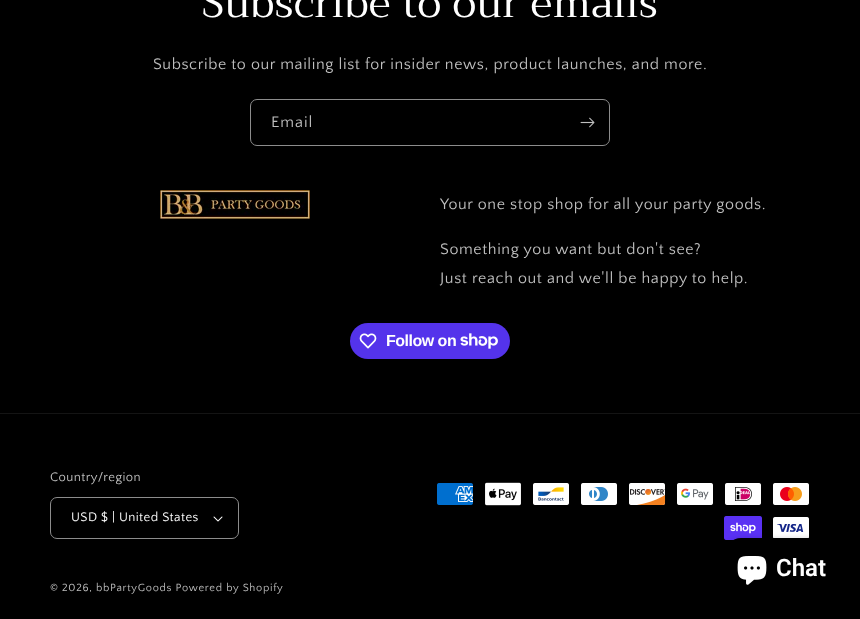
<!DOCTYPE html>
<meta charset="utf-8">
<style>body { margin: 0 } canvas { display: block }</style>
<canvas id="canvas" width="860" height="619"></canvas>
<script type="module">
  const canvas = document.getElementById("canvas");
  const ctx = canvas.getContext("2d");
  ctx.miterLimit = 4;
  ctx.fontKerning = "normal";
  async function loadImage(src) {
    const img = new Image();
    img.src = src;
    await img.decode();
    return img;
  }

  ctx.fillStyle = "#000000";
  ctx.fillRect(0, 0, 860, 619);
  ctx.letterSpacing = "0.6px";
  ctx.font = "40px Trirong";
  ctx.fillStyle = "#ffffff";
  ctx.fillText("Subscribe to our emails", 202, 17);
  ctx.font = "16px Quattrocento Sans";
  ctx.fillStyle = "#bfbfbf";
  ctx.fillText("Subscribe to our mailing list for insider news, product launches, and more.", 153, 69);
  ctx.beginPath();
  ctx.roundRect(250.5, 99.5, 359, 46, 6.5);
  ctx.strokeStyle = "#8c8c8c";
  ctx.stroke();
  ctx.letterSpacing = "1px";
  ctx.fillText("Email", 271, 127);
  ctx.drawImage(await loadImage("img1.png"), 580, 117, 15, 11);
  ctx.drawImage(await loadImage("img2.png"), 160, 190, 150, 29);
  ctx.letterSpacing = "0.6px";
  ctx.fillText("Your one stop shop for all your party goods.", 440, 209);
  ctx.fillText("Something you want but don't see?", 440, 254);
  ctx.fillText("Just reach out and we'll be happy to help.", 440, 283);
  ctx.fillStyle = "#5433eb";
  ctx.beginPath();
  ctx.roundRect(350, 323, 160, 36, 18);
  ctx.fill();
  ctx.drawImage(await loadImage("img3.png"), 359, 333, 18, 16);
  ctx.letterSpacing = "-0.5px";
  ctx.font = "bold 16px Liberation Sans";
  ctx.fillStyle = "#ffffff";
  ctx.fillText("Follow on", 386, 346);
  ctx.drawImage(await loadImage("img4.png"), 460, 333, 38, 16);
  ctx.fillStyle = "#141414";
  ctx.fillRect(0, 413, 860, 1);
  ctx.letterSpacing = "0.4px";
  ctx.font = "13px Quattrocento Sans";
  ctx.fillStyle = "#bfbfbf";
  ctx.fillText("Country/region", 50, 481);
  ctx.drawImage(await loadImage("img5.png"), 213, 516, 10, 6);
  ctx.beginPath();
  ctx.roundRect(50.5, 497.5, 188, 41, 6.5);
  ctx.stroke();
  ctx.fillStyle = "#ffffff";
  ctx.fillText("USD $ | United States", 71, 521);
  ctx.drawImage(await loadImage("img6.png"), 437, 483, 36, 22);
  ctx.drawImage(await loadImage("img7.png"), 485, 482, 36, 24);
  ctx.drawImage(await loadImage("img8.png"), 533, 483, 36, 22);
  ctx.drawImage(await loadImage("img9.png"), 581, 483, 36, 22);
  ctx.drawImage(await loadImage("img10.png"), 629, 483, 37, 22);
  ctx.drawImage(await loadImage("img11.png"), 677, 483, 36, 22);
  ctx.drawImage(await loadImage("img12.png"), 725, 483, 36, 22);
  ctx.drawImage(await loadImage("img13.png"), 773, 483, 36, 22);
  ctx.drawImage(await loadImage("img14.png"), 724, 516, 38, 24);
  ctx.drawImage(await loadImage("img15.png"), 773, 517, 36, 21);
  ctx.letterSpacing = "0.7px";
  ctx.font = "11px Quattrocento Sans";
  ctx.fillStyle = "#bfbfbf";
  ctx.fillText("© 2026, bbPartyGoods Powered by Shopify", 50, 591);
  ctx.fillStyle = "rgba(0, 0, 0, 0.15)";
  ctx.filter = "blur(2.5px)";
  ctx.beginPath();
  ctx.roundRect(725, 538, 113, 60, 16);
  ctx.fill();
  ctx.filter = "none";
  ctx.fillStyle = "#000000";
  ctx.beginPath();
  ctx.roundRect(725, 538, 113, 60, 16);
  ctx.fill();
  ctx.drawImage(await loadImage("img16.png"), 737, 556, 30, 29);
  ctx.letterSpacing = "0px";
  ctx.font = "600 24px Roboto";
  ctx.fillStyle = "#ffffff";
  ctx.fillText("Chat", 776, 576);
</script>
